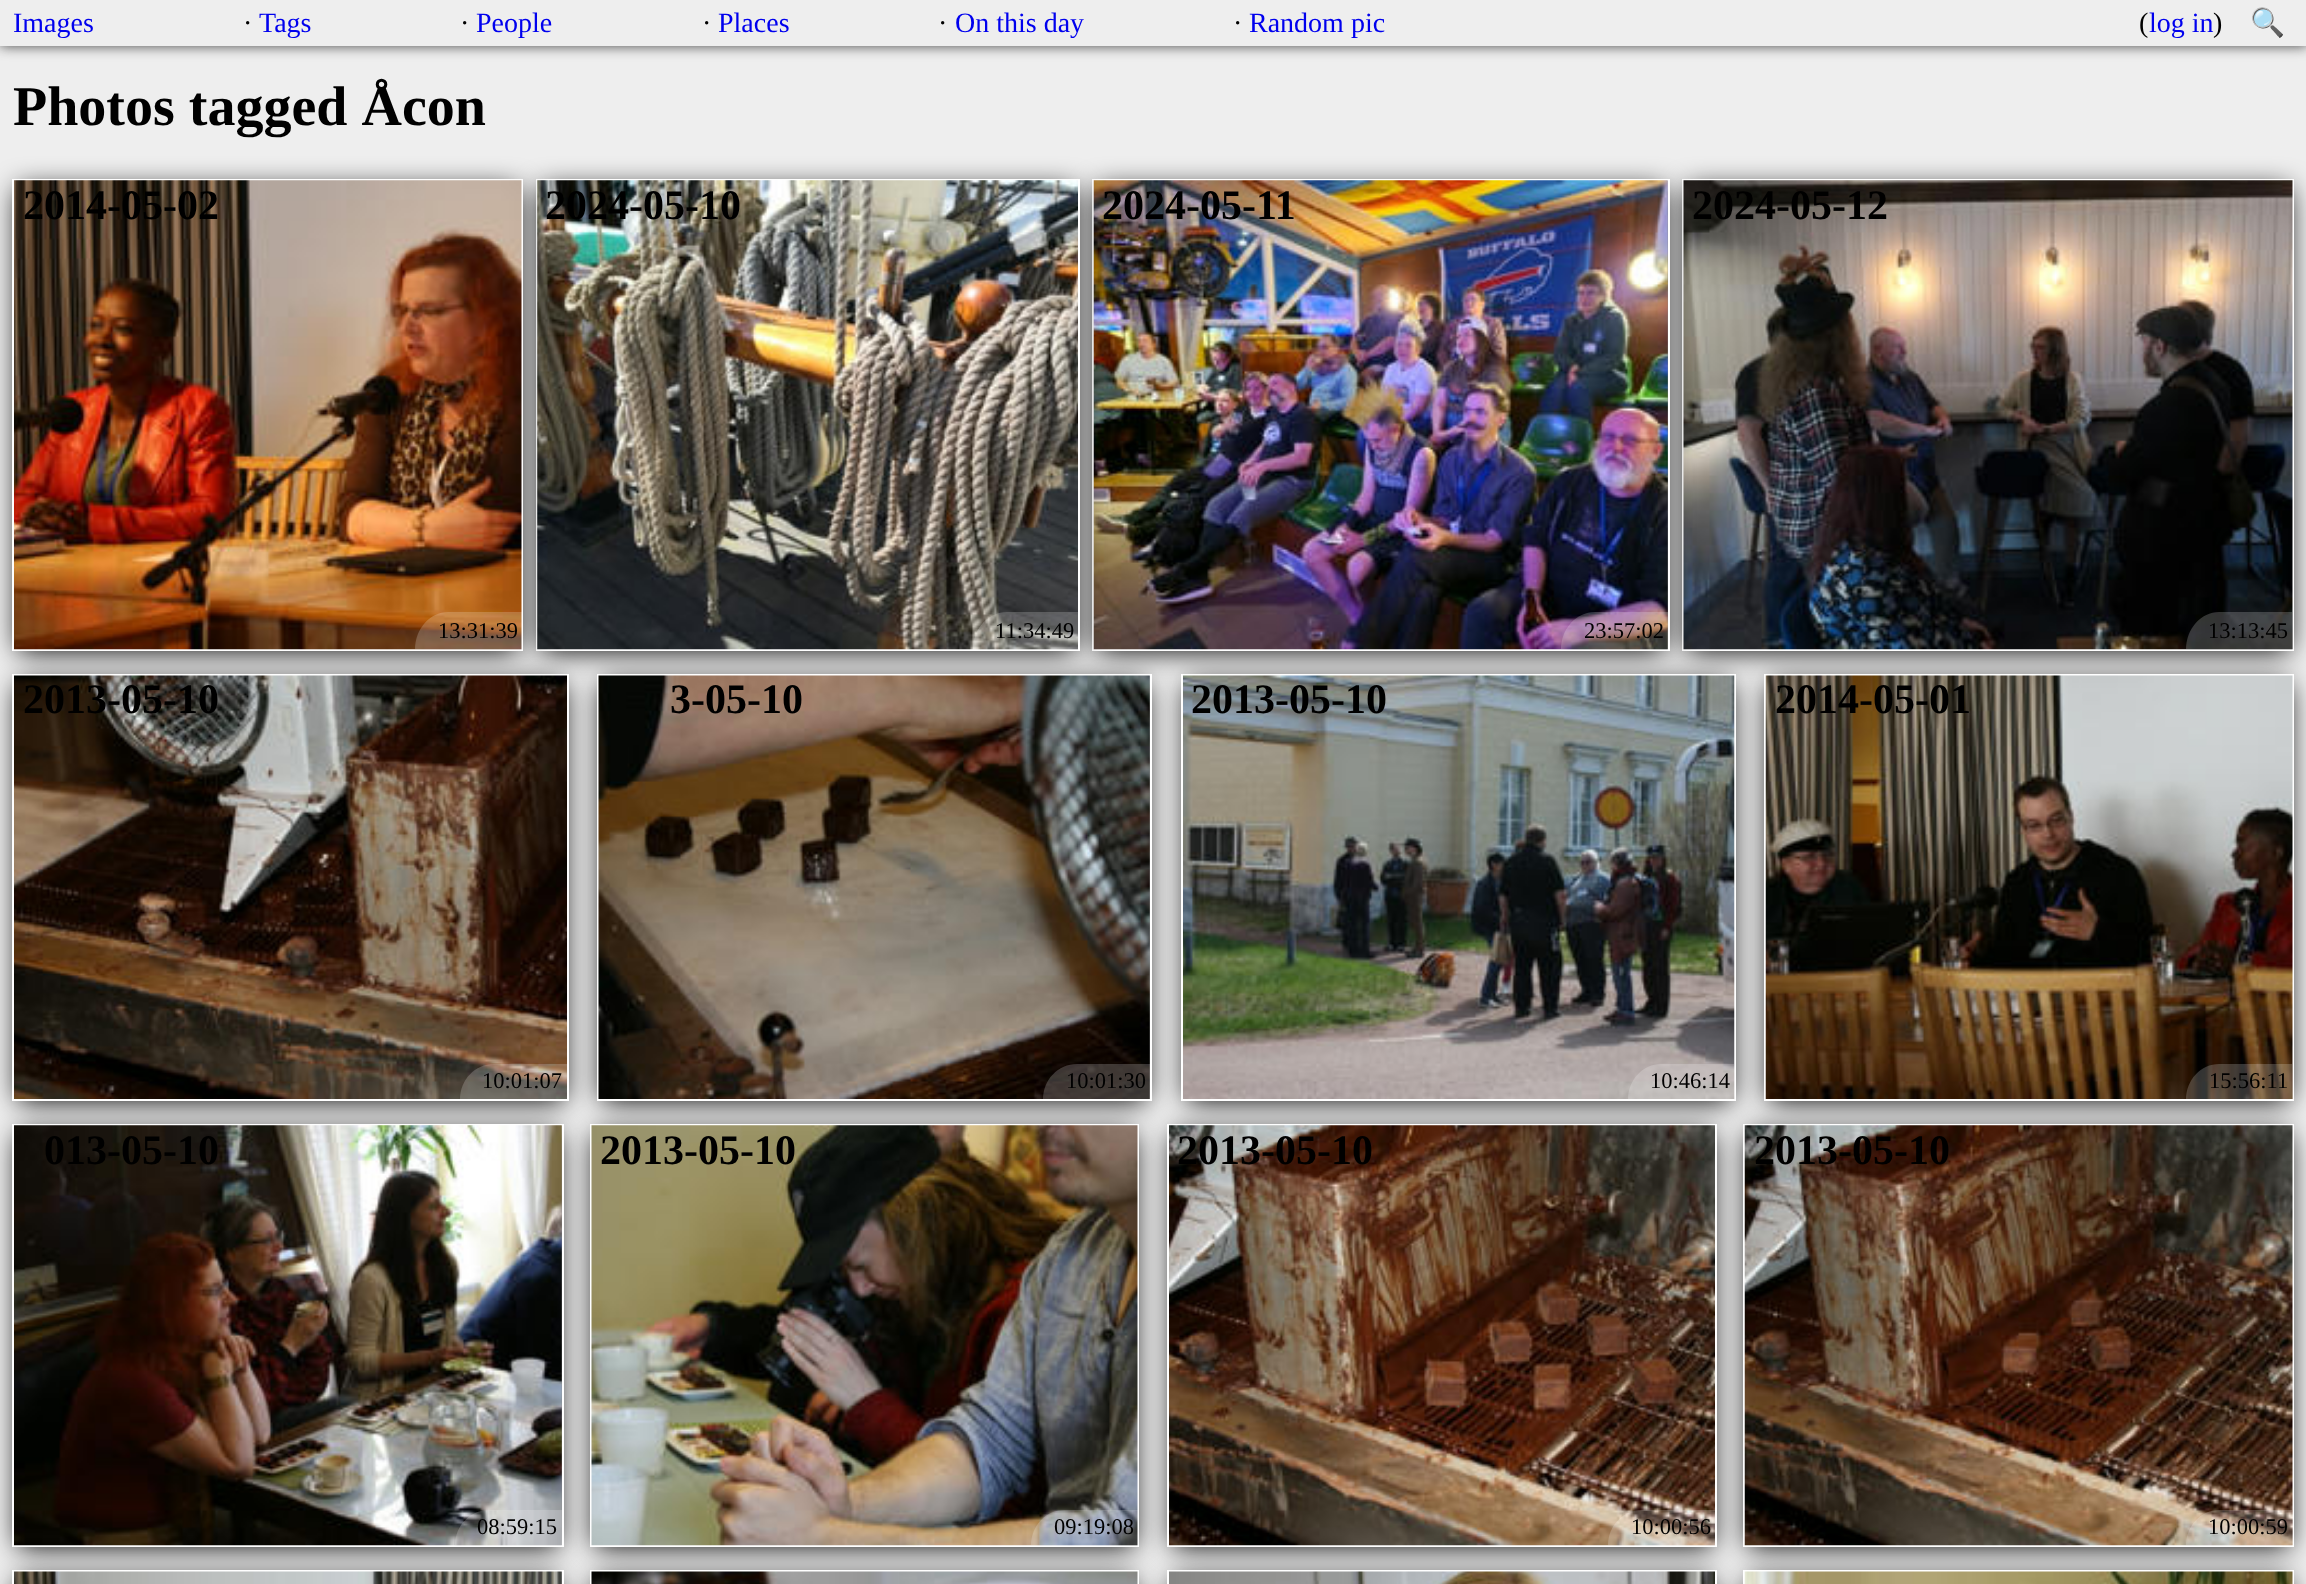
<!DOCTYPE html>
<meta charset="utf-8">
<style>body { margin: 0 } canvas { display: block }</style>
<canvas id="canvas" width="2306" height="1584"></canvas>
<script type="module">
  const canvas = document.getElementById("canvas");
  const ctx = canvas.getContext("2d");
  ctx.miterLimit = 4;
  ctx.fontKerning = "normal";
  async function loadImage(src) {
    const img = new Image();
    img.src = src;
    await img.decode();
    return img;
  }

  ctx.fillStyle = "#eeeeee";
  ctx.fillRect(0, 0, 2306, 1584);
  ctx.fillStyle = "#444444";
  ctx.filter = "blur(6.5px)";
  ctx.beginPath();
  ctx.rect(0, 0, 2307, 46);
  ctx.fill();
  ctx.filter = "none";
  ctx.fillStyle = "#eeeeee";
  ctx.fillRect(0, 0, 2306, 46);
  ctx.font = "28px Liberation Serif";
  ctx.fillStyle = "#0000ee";
  ctx.fillText("Images", 13, 32);
  ctx.fillStyle = "#000000";
  ctx.fillText("·", 243, 32);
  ctx.fillStyle = "#0000ee";
  ctx.fillText("Tags", 259, 32);
  ctx.fillStyle = "#000000";
  ctx.fillText("·", 460, 32);
  ctx.fillStyle = "#0000ee";
  ctx.fillText("People", 476, 32);
  ctx.fillStyle = "#000000";
  ctx.fillText("·", 702, 32);
  ctx.fillStyle = "#0000ee";
  ctx.fillText("Places", 718, 32);
  ctx.fillStyle = "#000000";
  ctx.fillText("·", 938, 32);
  ctx.fillStyle = "#0000ee";
  ctx.fillText("On this day", 955, 32);
  ctx.fillStyle = "#000000";
  ctx.fillText("·", 1233, 32);
  ctx.fillStyle = "#0000ee";
  ctx.fillText("Random pic", 1249, 32);
  ctx.fillStyle = "#000000";
  ctx.fillText("(", 2139, 32);
  ctx.fillStyle = "#0000ee";
  ctx.fillText("log in", 2149, 32);
  ctx.fillStyle = "#000000";
  ctx.fillText(")", 2213, 32);
  ctx.font = "28px Noto Color Emoji";
  ctx.fillText("🔍", 2250, 32);
  ctx.font = "bold 56px Liberation Serif";
  ctx.fillText("Photos tagged Åcon", 13, 125);
  ctx.filter = "blur(14px)";
  ctx.beginPath();
  ctx.rect(1687, 189, 602, 462);
  ctx.fill();
  ctx.filter = "none";
  ctx.strokeStyle = "#ffffff";
  ctx.lineWidth = 2;
  ctx.strokeRect(1683, 180, 610, 470);
  ctx.drawImage(await loadImage("img4.png"), 1683, 180, 610, 470);
  ctx.filter = "blur(14px)";
  ctx.beginPath();
  ctx.rect(1097, 189, 567, 462);
  ctx.fill();
  ctx.filter = "none";
  ctx.strokeRect(1093, 180, 576, 470);
  ctx.drawImage(await loadImage("img3.png"), 1093, 180, 575, 470);
  ctx.filter = "blur(14px)";
  ctx.beginPath();
  ctx.rect(541, 189, 534, 462);
  ctx.fill();
  ctx.filter = "none";
  ctx.strokeRect(537, 180, 542, 470);
  ctx.drawImage(await loadImage("img2.png"), 537, 180, 541, 470);
  ctx.filter = "blur(14px)";
  ctx.beginPath();
  ctx.rect(18, 189, 500, 462);
  ctx.fill();
  ctx.filter = "none";
  ctx.strokeRect(13, 180, 509, 470);
  ctx.drawImage(await loadImage("img1.png"), 14, 180, 508, 470);
  ctx.font = "bold 42px Liberation Serif";
  ctx.fillText("2014-05-02", 23, 219);
  ctx.fillStyle = "rgba(255, 255, 255, 0.2)";
  ctx.beginPath();
  ctx.moveTo(448, 612);
  ctx.lineTo(522, 612);
  ctx.lineTo(522, 649);
  ctx.lineTo(415, 649);
  ctx.bezierCurveTo(415, 629, 430, 612, 448, 612);
  ctx.closePath();
  ctx.fill();
  ctx.font = "22.5px Liberation Serif";
  ctx.fillStyle = "#000000";
  ctx.fillText("13:31:39", 438, 638);
  ctx.font = "bold 42px Liberation Serif";
  ctx.fillText("2024-05-10", 545, 219);
  ctx.fillStyle = "rgba(255, 255, 255, 0.2)";
  ctx.beginPath();
  ctx.moveTo(1007, 612);
  ctx.lineTo(1078, 612);
  ctx.lineTo(1078, 649);
  ctx.lineTo(973, 649);
  ctx.bezierCurveTo(973, 629, 988, 612, 1007, 612);
  ctx.closePath();
  ctx.fill();
  ctx.font = "22.5px Liberation Serif";
  ctx.fillStyle = "#000000";
  ctx.fillText("11:34:49", 995, 638);
  ctx.font = "bold 42px Liberation Serif";
  ctx.fillText("2024-05-11", 1102, 219);
  ctx.fillStyle = "rgba(255, 255, 255, 0.2)";
  ctx.beginPath();
  ctx.moveTo(1595, 612);
  ctx.lineTo(1668, 612);
  ctx.lineTo(1668, 649);
  ctx.lineTo(1561, 649);
  ctx.bezierCurveTo(1561, 629, 1576, 612, 1595, 612);
  ctx.closePath();
  ctx.fill();
  ctx.font = "22.5px Liberation Serif";
  ctx.fillStyle = "#000000";
  ctx.fillText("23:57:02", 1584, 638);
  ctx.font = "bold 42px Liberation Serif";
  ctx.fillText("2024-05-12", 1692, 219);
  ctx.fillStyle = "rgba(255, 255, 255, 0.2)";
  ctx.beginPath();
  ctx.moveTo(2219, 612);
  ctx.lineTo(2292, 612);
  ctx.lineTo(2292, 649);
  ctx.lineTo(2186, 649);
  ctx.bezierCurveTo(2186, 629, 2201, 612, 2219, 612);
  ctx.closePath();
  ctx.fill();
  ctx.font = "22.5px Liberation Serif";
  ctx.fillStyle = "#000000";
  ctx.fillText("13:13:45", 2208, 638);
  ctx.filter = "blur(14px)";
  ctx.beginPath();
  ctx.rect(1769, 684, 520, 417);
  ctx.fill();
  ctx.filter = "none";
  ctx.strokeRect(1765, 675, 528, 425);
  ctx.drawImage(await loadImage("img8.png"), 1765, 675, 528, 424);
  ctx.filter = "blur(14px)";
  ctx.beginPath();
  ctx.rect(1187, 684, 544, 417);
  ctx.fill();
  ctx.filter = "none";
  ctx.strokeRect(1182, 675, 553, 425);
  ctx.drawImage(await loadImage("img7.png"), 1183, 675, 552, 424);
  ctx.filter = "blur(14px)";
  ctx.beginPath();
  ctx.rect(602, 684, 544, 417);
  ctx.fill();
  ctx.filter = "none";
  ctx.strokeRect(598, 675, 553, 425);
  ctx.drawImage(await loadImage("img6.png"), 598, 675, 552, 424);
  ctx.filter = "blur(14px)";
  ctx.beginPath();
  ctx.rect(18, 684, 546, 417);
  ctx.fill();
  ctx.filter = "none";
  ctx.strokeRect(13, 675, 555, 425);
  ctx.drawImage(await loadImage("img5.png"), 14, 675, 553, 424);
  ctx.font = "bold 42px Liberation Serif";
  ctx.fillText("2013-05-10", 23, 713);
  ctx.fillStyle = "rgba(255, 255, 255, 0.2)";
  ctx.beginPath();
  ctx.moveTo(494, 1064);
  ctx.lineTo(567, 1064);
  ctx.lineTo(567, 1099);
  ctx.lineTo(460, 1099);
  ctx.bezierCurveTo(460, 1080, 475, 1064, 494, 1064);
  ctx.closePath();
  ctx.fill();
  ctx.font = "22.5px Liberation Serif";
  ctx.fillStyle = "#000000";
  ctx.fillText("10:01:07", 482, 1088);
  ctx.font = "bold 42px Liberation Serif";
  ctx.fillText("3-05-10", 670, 713);
  ctx.fillStyle = "rgba(255, 255, 255, 0.2)";
  ctx.beginPath();
  ctx.moveTo(1077, 1064);
  ctx.lineTo(1150, 1064);
  ctx.lineTo(1150, 1099);
  ctx.lineTo(1043, 1099);
  ctx.bezierCurveTo(1043, 1080, 1058, 1064, 1077, 1064);
  ctx.closePath();
  ctx.fill();
  ctx.font = "22.5px Liberation Serif";
  ctx.fillStyle = "#000000";
  ctx.fillText("10:01:30", 1066, 1088);
  ctx.font = "bold 42px Liberation Serif";
  ctx.fillText("2013-05-10", 1191, 713);
  ctx.fillStyle = "rgba(255, 255, 255, 0.2)";
  ctx.beginPath();
  ctx.moveTo(1661, 1064);
  ctx.lineTo(1734, 1064);
  ctx.lineTo(1734, 1099);
  ctx.lineTo(1628, 1099);
  ctx.bezierCurveTo(1628, 1080, 1643, 1064, 1661, 1064);
  ctx.closePath();
  ctx.fill();
  ctx.font = "22.5px Liberation Serif";
  ctx.fillStyle = "#000000";
  ctx.fillText("10:46:14", 1650, 1088);
  ctx.font = "bold 42px Liberation Serif";
  ctx.fillText("2014-05-01", 1775, 713);
  ctx.fillStyle = "rgba(255, 255, 255, 0.2)";
  ctx.beginPath();
  ctx.moveTo(2219, 1064);
  ctx.lineTo(2292, 1064);
  ctx.lineTo(2292, 1099);
  ctx.lineTo(2186, 1099);
  ctx.bezierCurveTo(2186, 1080, 2201, 1064, 2219, 1064);
  ctx.closePath();
  ctx.fill();
  ctx.font = "22.5px Liberation Serif";
  ctx.fillStyle = "#000000";
  ctx.fillText("15:56:11", 2209, 1088);
  ctx.filter = "blur(14px)";
  ctx.beginPath();
  ctx.rect(1748, 1134, 541, 413);
  ctx.fill();
  ctx.filter = "none";
  ctx.strokeRect(1744, 1125, 549, 421);
  ctx.drawImage(await loadImage("img12.png"), 1744, 1125, 549, 421);
  ctx.filter = "blur(14px)";
  ctx.beginPath();
  ctx.rect(1173, 1134, 539, 413);
  ctx.fill();
  ctx.filter = "none";
  ctx.strokeRect(1168, 1125, 548, 421);
  ctx.drawImage(await loadImage("img11.png"), 1169, 1125, 546, 421);
  ctx.filter = "blur(14px)";
  ctx.beginPath();
  ctx.rect(595, 1134, 539, 413);
  ctx.fill();
  ctx.filter = "none";
  ctx.strokeRect(591, 1125, 547, 421);
  ctx.drawImage(await loadImage("img10.png"), 591, 1125, 547, 421);
  ctx.filter = "blur(14px)";
  ctx.beginPath();
  ctx.rect(18, 1134, 540, 413);
  ctx.fill();
  ctx.filter = "none";
  ctx.strokeRect(13, 1125, 550, 421);
  ctx.drawImage(await loadImage("img9.png"), 14, 1125, 548, 421);
  ctx.font = "bold 42px Liberation Serif";
  ctx.fillText("013-05-10", 44, 1164);
  ctx.fillStyle = "rgba(255, 255, 255, 0.2)";
  ctx.beginPath();
  ctx.moveTo(489, 1510);
  ctx.lineTo(562, 1510);
  ctx.lineTo(562, 1545);
  ctx.lineTo(455, 1545);
  ctx.bezierCurveTo(455, 1526, 470, 1510, 489, 1510);
  ctx.closePath();
  ctx.fill();
  ctx.font = "22.5px Liberation Serif";
  ctx.fillStyle = "#000000";
  ctx.fillText("08:59:15", 477, 1534);
  ctx.font = "bold 42px Liberation Serif";
  ctx.fillText("2013-05-10", 600, 1164);
  ctx.fillStyle = "rgba(255, 255, 255, 0.2)";
  ctx.beginPath();
  ctx.moveTo(1064, 1510);
  ctx.lineTo(1138, 1510);
  ctx.lineTo(1138, 1545);
  ctx.lineTo(1031, 1545);
  ctx.bezierCurveTo(1031, 1526, 1046, 1510, 1064, 1510);
  ctx.closePath();
  ctx.fill();
  ctx.font = "22.5px Liberation Serif";
  ctx.fillStyle = "#000000";
  ctx.fillText("09:19:08", 1054, 1534);
  ctx.font = "bold 42px Liberation Serif";
  ctx.fillText("2013-05-10", 1177, 1164);
  ctx.fillStyle = "rgba(255, 255, 255, 0.2)";
  ctx.beginPath();
  ctx.moveTo(1642, 1510);
  ctx.lineTo(1715, 1510);
  ctx.lineTo(1715, 1545);
  ctx.lineTo(1608, 1545);
  ctx.bezierCurveTo(1608, 1526, 1623, 1510, 1642, 1510);
  ctx.closePath();
  ctx.fill();
  ctx.font = "22.5px Liberation Serif";
  ctx.fillStyle = "#000000";
  ctx.fillText("10:00:56", 1631, 1534);
  ctx.font = "bold 42px Liberation Serif";
  ctx.fillText("2013-05-10", 1754, 1164);
  ctx.fillStyle = "rgba(255, 255, 255, 0.2)";
  ctx.beginPath();
  ctx.moveTo(2219, 1510);
  ctx.lineTo(2292, 1510);
  ctx.lineTo(2292, 1545);
  ctx.lineTo(2186, 1545);
  ctx.bezierCurveTo(2186, 1526, 2201, 1510, 2219, 1510);
  ctx.closePath();
  ctx.fill();
  ctx.font = "22.5px Liberation Serif";
  ctx.fillStyle = "#000000";
  ctx.fillText("10:00:59", 2208, 1534);
  ctx.filter = "blur(14px)";
  ctx.beginPath();
  ctx.rect(1748, 1580, 541, 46);
  ctx.fill();
  ctx.filter = "none";
  ctx.strokeRect(1744, 1571, 549, 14);
  ctx.drawImage(await loadImage("img16.png"), 1744, 1571, 549, 13);
  ctx.filter = "blur(14px)";
  ctx.beginPath();
  ctx.rect(1173, 1580, 539, 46);
  ctx.fill();
  ctx.filter = "none";
  ctx.strokeRect(1168, 1571, 548, 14);
  ctx.drawImage(await loadImage("img15.png"), 1169, 1571, 546, 13);
  ctx.filter = "blur(14px)";
  ctx.beginPath();
  ctx.rect(595, 1580, 539, 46);
  ctx.fill();
  ctx.filter = "none";
  ctx.strokeRect(591, 1571, 547, 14);
  ctx.drawImage(await loadImage("img14.png"), 591, 1571, 547, 13);
  ctx.filter = "blur(14px)";
  ctx.beginPath();
  ctx.rect(18, 1580, 540, 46);
  ctx.fill();
  ctx.filter = "none";
  ctx.strokeRect(13, 1571, 550, 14);
  ctx.drawImage(await loadImage("img13.png"), 14, 1571, 548, 13);
</script>
